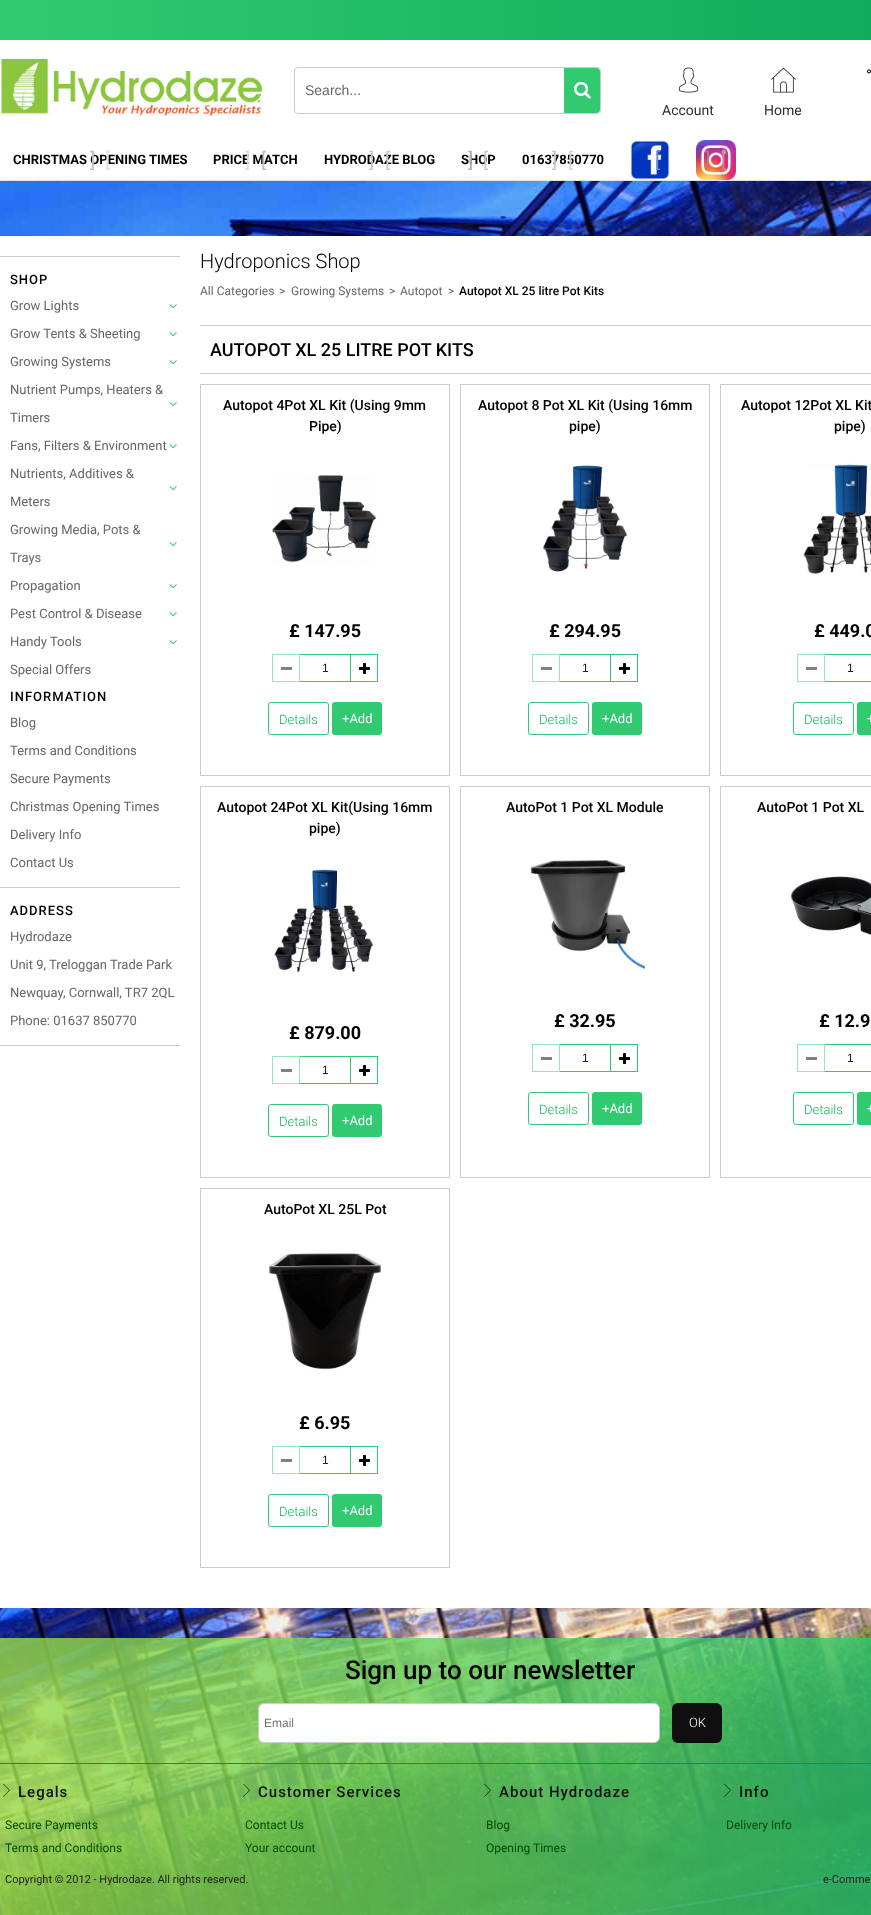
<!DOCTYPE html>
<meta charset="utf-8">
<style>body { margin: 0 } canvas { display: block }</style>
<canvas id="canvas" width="871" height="1915"></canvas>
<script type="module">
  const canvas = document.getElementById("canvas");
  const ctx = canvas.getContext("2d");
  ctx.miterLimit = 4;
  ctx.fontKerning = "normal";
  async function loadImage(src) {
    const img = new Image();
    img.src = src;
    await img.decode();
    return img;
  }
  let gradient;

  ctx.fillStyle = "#ffffff";
  ctx.fillRect(0, 0, 871, 1915);
  ctx.drawImage(await loadImage("img1.png"), 0, 181, 871, 55);
  ctx.drawImage(await loadImage("img2.png"), 0, 1608, 871, 307);
  gradient = ctx.createLinearGradient(871, 20, 0, 20);
  gradient.addColorStop(0, "#0fac5c");
  gradient.addColorStop(1, "#31ca70");
  ctx.fillStyle = gradient;
  ctx.fillRect(0, 0, 871, 40);
  ctx.fillStyle = "#e2e2e2";
  ctx.fillRect(0, 180, 871, 1);
  ctx.drawImage(await loadImage("img3.png"), 0, 58, 264, 58);
  ctx.beginPath();
  ctx.roundRect(294.5, 67.5, 306, 46, 3.5);
  ctx.strokeStyle = "#cccccc";
  ctx.stroke();
  ctx.font = "14px Liberation Sans";
  ctx.fillStyle = "#666666";
  ctx.fillText("Search...", 305, 95);
  ctx.fillStyle = "#31ca70";
  ctx.beginPath();
  ctx.roundRect(564, 68, 36, 45, [0, 4, 4, 0]);
  ctx.fill();
  ctx.drawImage(await loadImage("img4.png"), 574, 81, 17, 18);
  ctx.drawImage(await loadImage("img5.png"), 867, 69, 4, 5);
  ctx.drawImage(await loadImage("img6.png"), 678, 67, 21, 26);
  ctx.font = "14px Roboto";
  ctx.fillStyle = "#2e2e2e";
  ctx.fillText("Account", 662, 115);
  ctx.drawImage(await loadImage("img7.png"), 771, 67, 25, 26);
  ctx.fillText("Home", 764, 115);
  ctx.font = "bold 13px Roboto";
  ctx.fillStyle = "#000000";
  ctx.fillText("CHRISTMAS OPENING TIMES", 13, 164);
  ctx.font = "20px Roboto";
  ctx.fillStyle = "#c0c0c0";
  ctx.fillText("]", 90, 167);
  ctx.fillStyle = "#e1e1e1";
  ctx.fillText("[", 105, 167);
  ctx.font = "bold 13px Roboto";
  ctx.fillStyle = "#000000";
  ctx.fillText("PRICE MATCH", 213, 164);
  ctx.font = "20px Roboto";
  ctx.fillStyle = "#dbdbdb";
  ctx.fillText("]", 245, 167);
  ctx.fillStyle = "#c0c0c0";
  ctx.fillText("[", 261, 167);
  ctx.font = "bold 13px Roboto";
  ctx.fillStyle = "#000000";
  ctx.fillText("HYDRODAZE BLOG", 324, 164);
  ctx.font = "20px Roboto";
  ctx.fillStyle = "#c8c8c8";
  ctx.fillText("]", 369, 167);
  ctx.fillText("[", 385, 167);
  ctx.font = "bold 13px Roboto";
  ctx.fillStyle = "#000000";
  ctx.fillText("SHOP", 461, 164);
  ctx.font = "20px Roboto";
  ctx.fillStyle = "#afafaf";
  ctx.fillText("]", 468, 167);
  ctx.fillStyle = "#c8c8c8";
  ctx.fillText("[", 483, 167);
  ctx.font = "bold 13px Roboto";
  ctx.fillStyle = "#000000";
  ctx.fillText("01637850770", 522, 164);
  ctx.font = "20px Roboto";
  ctx.fillStyle = "#c8c8c8";
  ctx.fillText("]", 552, 167);
  ctx.fillStyle = "#d4d4d4";
  ctx.fillText("[", 568, 167);
  ctx.drawImage(await loadImage("img8.png"), 630, 140, 40, 40);
  ctx.fillStyle = "#6b87cf";
  ctx.fillText("[", 655, 167);
  ctx.drawImage(await loadImage("img9.png"), 696, 140, 40, 40);
  ctx.fillStyle = "#da6c75";
  ctx.fillText("]", 705, 167);
  ctx.fillStyle = "#e47c9a";
  ctx.fillText("[", 721, 167);
  ctx.fillStyle = "#cccccc";
  ctx.fillRect(0, 256, 180, 1);
  ctx.letterSpacing = "1px";
  ctx.font = "500 13px Roboto";
  ctx.fillStyle = "#000000";
  ctx.fillText("SHOP", 10, 284);
  ctx.letterSpacing = "0px";
  ctx.font = "13px Roboto";
  ctx.fillStyle = "#666666";
  ctx.fillText("Grow Lights", 10, 310);
  ctx.drawImage(await loadImage("img10.png"), 169, 304, 8, 5);
  ctx.fillText("Grow Tents & Sheeting", 10, 338);
  ctx.drawImage(await loadImage("img10.png"), 169, 332, 8, 5);
  ctx.fillText("Growing Systems", 10, 366);
  ctx.drawImage(await loadImage("img10.png"), 169, 360, 8, 5);
  ctx.fillText("Nutrient Pumps, Heaters &", 10, 394);
  ctx.fillText("Timers", 10, 422);
  ctx.drawImage(await loadImage("img10.png"), 169, 402, 8, 5);
  ctx.fillText("Fans, Filters & Environment", 10, 450);
  ctx.drawImage(await loadImage("img10.png"), 169, 444, 8, 5);
  ctx.fillText("Nutrients, Additives &", 10, 478);
  ctx.fillText("Meters", 10, 506);
  ctx.drawImage(await loadImage("img10.png"), 169, 486, 8, 5);
  ctx.fillText("Growing Media, Pots &", 10, 534);
  ctx.fillText("Trays", 10, 562);
  ctx.drawImage(await loadImage("img10.png"), 169, 542, 8, 5);
  ctx.fillText("Propagation", 10, 590);
  ctx.drawImage(await loadImage("img10.png"), 169, 584, 8, 5);
  ctx.fillText("Pest Control & Disease", 10, 618);
  ctx.drawImage(await loadImage("img10.png"), 169, 612, 8, 5);
  ctx.fillText("Handy Tools", 10, 646);
  ctx.drawImage(await loadImage("img10.png"), 169, 640, 8, 5);
  ctx.fillText("Special Offers", 10, 674);
  ctx.letterSpacing = "1px";
  ctx.font = "500 13px Roboto";
  ctx.fillStyle = "#000000";
  ctx.fillText("INFORMATION", 10, 701);
  ctx.letterSpacing = "0px";
  ctx.font = "13px Roboto";
  ctx.fillStyle = "#666666";
  ctx.fillText("Blog", 10, 727);
  ctx.fillText("Terms and Conditions", 10, 755);
  ctx.fillText("Secure Payments", 10, 783);
  ctx.fillText("Christmas Opening Times", 10, 811);
  ctx.fillText("Delivery Info", 10, 839);
  ctx.fillText("Contact Us", 10, 867);
  ctx.fillStyle = "#cccccc";
  ctx.fillRect(0, 887, 180, 1);
  ctx.letterSpacing = "1px";
  ctx.font = "500 13px Roboto";
  ctx.fillStyle = "#000000";
  ctx.fillText("ADDRESS", 10, 915);
  ctx.letterSpacing = "0px";
  ctx.font = "13px Roboto";
  ctx.fillStyle = "#666666";
  ctx.fillText("Hydrodaze", 10, 941);
  ctx.fillText("Unit 9, Treloggan Trade Park", 10, 969);
  ctx.fillText("Newquay, Cornwall, TR7 2QL", 10, 997);
  ctx.fillText("Phone: 01637 850770", 10, 1025);
  ctx.fillStyle = "#cccccc";
  ctx.fillRect(0, 1045, 180, 1);
  ctx.font = "300 20px Roboto";
  ctx.fillStyle = "#000000";
  ctx.fillText("Hydroponics Shop", 200, 268);
  ctx.font = "12px Roboto";
  ctx.fillStyle = "#666666";
  ctx.fillText("All Categories", 200, 295);
  ctx.fillText(">", 279, 295);
  ctx.fillText("Growing Systems", 291, 295);
  ctx.fillText(">", 389, 295);
  ctx.fillText("Autopot", 400, 295);
  ctx.fillText(">", 448, 295);
  ctx.font = "500 12px Roboto";
  ctx.fillStyle = "#000000";
  ctx.fillText("Autopot XL 25 litre Pot Kits", 459, 295);
  ctx.fillStyle = "#cccccc";
  ctx.fillRect(200, 325, 671, 1);
  ctx.fillRect(200, 373, 671, 1);
  ctx.font = "500 18px Roboto";
  ctx.fillStyle = "#000000";
  ctx.fillText("AUTOPOT XL 25 LITRE POT KITS", 210, 356);
  ctx.strokeRect(200.5, 384.5, 249, 391);
  ctx.font = "500 14px Roboto";
  ctx.fillText("Autopot 4Pot XL Kit (Using 9mm", 223, 410);
  ctx.fillText("Pipe)", 309, 431);
  ctx.drawImage(await loadImage("img11.png"), 272, 475, 105, 88);
  ctx.font = "bold 18px Roboto";
  ctx.fillText("£ 147.95", 289, 637);
  ctx.strokeStyle = "#98e5b8";
  ctx.strokeRect(272.5, 654.5, 27, 27);
  ctx.fillStyle = "#808080";
  ctx.fillRect(281, 667, 11, 3);
  ctx.fillStyle = "#31ca70";
  ctx.fillRect(300, 654, 50, 1);
  ctx.fillRect(300, 681, 50, 1);
  ctx.font = "12px Liberation Sans";
  ctx.fillStyle = "#1f1f1f";
  ctx.fillText("1", 322, 672);
  ctx.strokeStyle = "#31ca70";
  ctx.strokeRect(350.5, 654.5, 27, 27);
  ctx.drawImage(await loadImage("img12.png"), 359, 663, 11, 11);
  ctx.beginPath();
  ctx.roundRect(268.5, 702.5, 60, 32, 2.5);
  ctx.stroke();
  ctx.font = "300 13px Roboto";
  ctx.fillStyle = "#1ab359";
  ctx.fillText("Details", 279, 724);
  ctx.fillStyle = "#31ca70";
  ctx.beginPath();
  ctx.roundRect(332, 702, 50, 33, 3);
  ctx.fill();
  ctx.font = "13px Roboto";
  ctx.fillStyle = "#ffffff";
  ctx.fillText("+Add", 342, 723);
  ctx.strokeStyle = "#cccccc";
  ctx.strokeRect(460.5, 384.5, 249, 391);
  ctx.font = "500 14px Roboto";
  ctx.fillStyle = "#000000";
  ctx.fillText("Autopot 8 Pot XL Kit (Using 16mm", 478, 410);
  ctx.fillText("pipe)", 569, 431);
  ctx.drawImage(await loadImage("img13.png"), 543, 465, 84, 107);
  ctx.font = "bold 18px Roboto";
  ctx.fillText("£ 294.95", 549, 637);
  ctx.strokeStyle = "#98e5b8";
  ctx.strokeRect(532.5, 654.5, 27, 27);
  ctx.fillStyle = "#808080";
  ctx.fillRect(541, 667, 11, 3);
  ctx.fillStyle = "#31ca70";
  ctx.fillRect(560, 654, 50, 1);
  ctx.fillRect(560, 681, 50, 1);
  ctx.font = "12px Liberation Sans";
  ctx.fillStyle = "#1f1f1f";
  ctx.fillText("1", 582, 672);
  ctx.strokeStyle = "#31ca70";
  ctx.strokeRect(610.5, 654.5, 27, 27);
  ctx.drawImage(await loadImage("img12.png"), 619, 663, 11, 11);
  ctx.beginPath();
  ctx.roundRect(528.5, 702.5, 60, 32, 2.5);
  ctx.stroke();
  ctx.font = "300 13px Roboto";
  ctx.fillStyle = "#1ab359";
  ctx.fillText("Details", 539, 724);
  ctx.fillStyle = "#31ca70";
  ctx.beginPath();
  ctx.roundRect(592, 702, 50, 33, 3);
  ctx.fill();
  ctx.font = "13px Roboto";
  ctx.fillStyle = "#ffffff";
  ctx.fillText("+Add", 602, 723);
  ctx.strokeStyle = "#cccccc";
  ctx.strokeRect(720.5, 384.5, 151, 391);
  ctx.font = "500 14px Roboto";
  ctx.fillStyle = "#000000";
  ctx.fillText("Autopot 12Pot XL Kit", 741, 410);
  ctx.fillText("pipe)", 834, 431);
  ctx.drawImage(await loadImage("img14.png"), 803, 463, 68, 111);
  ctx.font = "bold 18px Roboto";
  ctx.fillText("£ 449.0", 814, 637);
  ctx.strokeStyle = "#98e5b8";
  ctx.strokeRect(797.5, 654.5, 27, 27);
  ctx.fillStyle = "#808080";
  ctx.fillRect(806, 667, 11, 3);
  ctx.fillStyle = "#31ca70";
  ctx.fillRect(825, 654, 46, 1);
  ctx.fillRect(825, 681, 46, 1);
  ctx.font = "12px Liberation Sans";
  ctx.fillStyle = "#1f1f1f";
  ctx.fillText("1", 847, 672);
  ctx.beginPath();
  ctx.roundRect(793.5, 702.5, 60, 32, 2.5);
  ctx.strokeStyle = "#31ca70";
  ctx.stroke();
  ctx.font = "300 13px Roboto";
  ctx.fillStyle = "#1ab359";
  ctx.fillText("Details", 804, 724);
  ctx.fillStyle = "#31ca70";
  ctx.beginPath();
  ctx.roundRect(857, 702, 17, 33, 3);
  ctx.fill();
  ctx.font = "13px Roboto";
  ctx.fillStyle = "#ffffff";
  ctx.fillText("+", 867, 723);
  ctx.strokeStyle = "#cccccc";
  ctx.strokeRect(200.5, 786.5, 249, 391);
  ctx.font = "500 14px Roboto";
  ctx.fillStyle = "#000000";
  ctx.fillText("Autopot 24Pot XL Kit(Using 16mm", 217, 812);
  ctx.fillText("pipe)", 309, 833);
  ctx.drawImage(await loadImage("img15.png"), 274, 868, 100, 105);
  ctx.font = "bold 18px Roboto";
  ctx.fillText("£ 879.00", 289, 1039);
  ctx.strokeStyle = "#98e5b8";
  ctx.strokeRect(272.5, 1056.5, 27, 27);
  ctx.fillStyle = "#808080";
  ctx.fillRect(281, 1069, 11, 3);
  ctx.fillStyle = "#31ca70";
  ctx.fillRect(300, 1056, 50, 1);
  ctx.fillRect(300, 1083, 50, 1);
  ctx.font = "12px Liberation Sans";
  ctx.fillStyle = "#1f1f1f";
  ctx.fillText("1", 322, 1074);
  ctx.strokeStyle = "#31ca70";
  ctx.strokeRect(350.5, 1056.5, 27, 27);
  ctx.drawImage(await loadImage("img12.png"), 359, 1065, 11, 11);
  ctx.beginPath();
  ctx.roundRect(268.5, 1104.5, 60, 32, 2.5);
  ctx.stroke();
  ctx.font = "300 13px Roboto";
  ctx.fillStyle = "#1ab359";
  ctx.fillText("Details", 279, 1126);
  ctx.fillStyle = "#31ca70";
  ctx.beginPath();
  ctx.roundRect(332, 1104, 50, 33, 3);
  ctx.fill();
  ctx.font = "13px Roboto";
  ctx.fillStyle = "#ffffff";
  ctx.fillText("+Add", 342, 1125);
  ctx.strokeStyle = "#cccccc";
  ctx.strokeRect(460.5, 786.5, 249, 391);
  ctx.font = "500 14px Roboto";
  ctx.fillStyle = "#000000";
  ctx.fillText("AutoPot 1 Pot XL Module", 506, 812);
  ctx.drawImage(await loadImage("img16.png"), 530, 860, 115, 109);
  ctx.font = "bold 18px Roboto";
  ctx.fillText("£ 32.95", 554, 1027);
  ctx.strokeStyle = "#98e5b8";
  ctx.strokeRect(532.5, 1044.5, 27, 27);
  ctx.fillStyle = "#808080";
  ctx.fillRect(541, 1057, 11, 3);
  ctx.fillStyle = "#31ca70";
  ctx.fillRect(560, 1044, 50, 1);
  ctx.fillRect(560, 1071, 50, 1);
  ctx.font = "12px Liberation Sans";
  ctx.fillStyle = "#1f1f1f";
  ctx.fillText("1", 582, 1062);
  ctx.strokeStyle = "#31ca70";
  ctx.strokeRect(610.5, 1044.5, 27, 27);
  ctx.drawImage(await loadImage("img12.png"), 619, 1053, 11, 11);
  ctx.beginPath();
  ctx.roundRect(528.5, 1092.5, 60, 32, 2.5);
  ctx.stroke();
  ctx.font = "300 13px Roboto";
  ctx.fillStyle = "#1ab359";
  ctx.fillText("Details", 539, 1114);
  ctx.fillStyle = "#31ca70";
  ctx.beginPath();
  ctx.roundRect(592, 1092, 50, 33, 3);
  ctx.fill();
  ctx.font = "13px Roboto";
  ctx.fillStyle = "#ffffff";
  ctx.fillText("+Add", 602, 1113);
  ctx.strokeStyle = "#cccccc";
  ctx.strokeRect(720.5, 786.5, 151, 391);
  ctx.font = "500 14px Roboto";
  ctx.fillStyle = "#000000";
  ctx.fillText("AutoPot 1 Pot XL", 757, 812);
  ctx.drawImage(await loadImage("img17.png"), 790, 875, 81, 60);
  ctx.font = "bold 18px Roboto";
  ctx.fillText("£ 12.9", 819, 1027);
  ctx.strokeStyle = "#98e5b8";
  ctx.strokeRect(797.5, 1044.5, 27, 27);
  ctx.fillStyle = "#808080";
  ctx.fillRect(806, 1057, 11, 3);
  ctx.fillStyle = "#31ca70";
  ctx.fillRect(825, 1044, 46, 1);
  ctx.fillRect(825, 1071, 46, 1);
  ctx.font = "12px Liberation Sans";
  ctx.fillStyle = "#1f1f1f";
  ctx.fillText("1", 847, 1062);
  ctx.beginPath();
  ctx.roundRect(793.5, 1092.5, 60, 32, 2.5);
  ctx.strokeStyle = "#31ca70";
  ctx.stroke();
  ctx.font = "300 13px Roboto";
  ctx.fillStyle = "#1ab359";
  ctx.fillText("Details", 804, 1114);
  ctx.fillStyle = "#31ca70";
  ctx.beginPath();
  ctx.roundRect(857, 1092, 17, 33, 3);
  ctx.fill();
  ctx.font = "13px Roboto";
  ctx.fillStyle = "#ffffff";
  ctx.fillText("+", 867, 1113);
  ctx.strokeStyle = "#cccccc";
  ctx.strokeRect(200.5, 1188.5, 249, 379);
  ctx.font = "500 14px Roboto";
  ctx.fillStyle = "#000000";
  ctx.fillText("AutoPot XL 25L Pot", 264, 1214);
  ctx.drawImage(await loadImage("img18.png"), 268, 1251, 113, 119);
  ctx.font = "bold 18px Roboto";
  ctx.fillText("£ 6.95", 299, 1429);
  ctx.strokeStyle = "#98e5b8";
  ctx.strokeRect(272.5, 1446.5, 27, 27);
  ctx.fillStyle = "#808080";
  ctx.fillRect(281, 1459, 11, 3);
  ctx.fillStyle = "#31ca70";
  ctx.fillRect(300, 1446, 50, 1);
  ctx.fillRect(300, 1473, 50, 1);
  ctx.font = "12px Liberation Sans";
  ctx.fillStyle = "#1f1f1f";
  ctx.fillText("1", 322, 1464);
  ctx.strokeStyle = "#31ca70";
  ctx.strokeRect(350.5, 1446.5, 27, 27);
  ctx.drawImage(await loadImage("img12.png"), 359, 1455, 11, 11);
  ctx.beginPath();
  ctx.roundRect(268.5, 1494.5, 60, 32, 2.5);
  ctx.stroke();
  ctx.font = "300 13px Roboto";
  ctx.fillStyle = "#1ab359";
  ctx.fillText("Details", 279, 1516);
  ctx.fillStyle = "#31ca70";
  ctx.beginPath();
  ctx.roundRect(332, 1494, 50, 33, 3);
  ctx.fill();
  ctx.font = "13px Roboto";
  ctx.fillStyle = "#ffffff";
  ctx.fillText("+Add", 342, 1515);
  ctx.fillStyle = "#46810f";
  ctx.fillRect(0, 1763, 871, 1);
  ctx.font = "500 26px Roboto";
  ctx.fillStyle = "#000000";
  ctx.fillText("Sign up to our newsletter", 345, 1679);
  ctx.fillStyle = "#ffffff";
  ctx.beginPath();
  ctx.roundRect(258.5, 1703.5, 401, 39, 5.5);
  ctx.fill();
  ctx.strokeStyle = "#cccccc";
  ctx.stroke();
  ctx.font = "12px Liberation Sans";
  ctx.fillStyle = "#757575";
  ctx.fillText("Email", 264, 1727);
  ctx.fillStyle = "#0f0f0f";
  ctx.beginPath();
  ctx.roundRect(672, 1703, 50, 40, 6);
  ctx.fill();
  ctx.font = "300 13px Roboto";
  ctx.fillStyle = "#ffffff";
  ctx.fillText("OK", 689, 1727);
  ctx.drawImage(await loadImage("img19.png"), 3, 1783, 7, 14);
  ctx.letterSpacing = "1px";
  ctx.font = "500 15px Roboto";
  ctx.fillStyle = "#0f0f0f";
  ctx.fillText("Legals", 18, 1797);
  ctx.drawImage(await loadImage("img20.png"), 243, 1783, 7, 14);
  ctx.fillText("Customer Services", 258, 1797);
  ctx.drawImage(await loadImage("img21.png"), 484, 1783, 7, 14);
  ctx.fillText("About Hydrodaze", 499, 1797);
  ctx.drawImage(await loadImage("img22.png"), 724, 1783, 7, 14);
  ctx.fillText("Info", 739, 1797);
  ctx.letterSpacing = "0px";
  ctx.font = "12px Roboto";
  ctx.fillStyle = "#004e00";
  ctx.fillText("Secure Payments", 5, 1829);
  ctx.fillText("Contact Us", 245, 1829);
  ctx.fillText("Blog", 486, 1829);
  ctx.fillText("Delivery Info", 726, 1829);
  ctx.fillText("Terms and Conditions", 5, 1852);
  ctx.fillText("Your account", 245, 1852);
  ctx.fillText("Opening Times", 486, 1852);
  ctx.font = "11px Roboto";
  ctx.fillStyle = "#1f1f1f";
  ctx.fillText("Copyright © 2012 - Hydrodaze. All rights reserved.", 5, 1883);
  ctx.fillText("e-Comme", 823, 1883);
</script>
